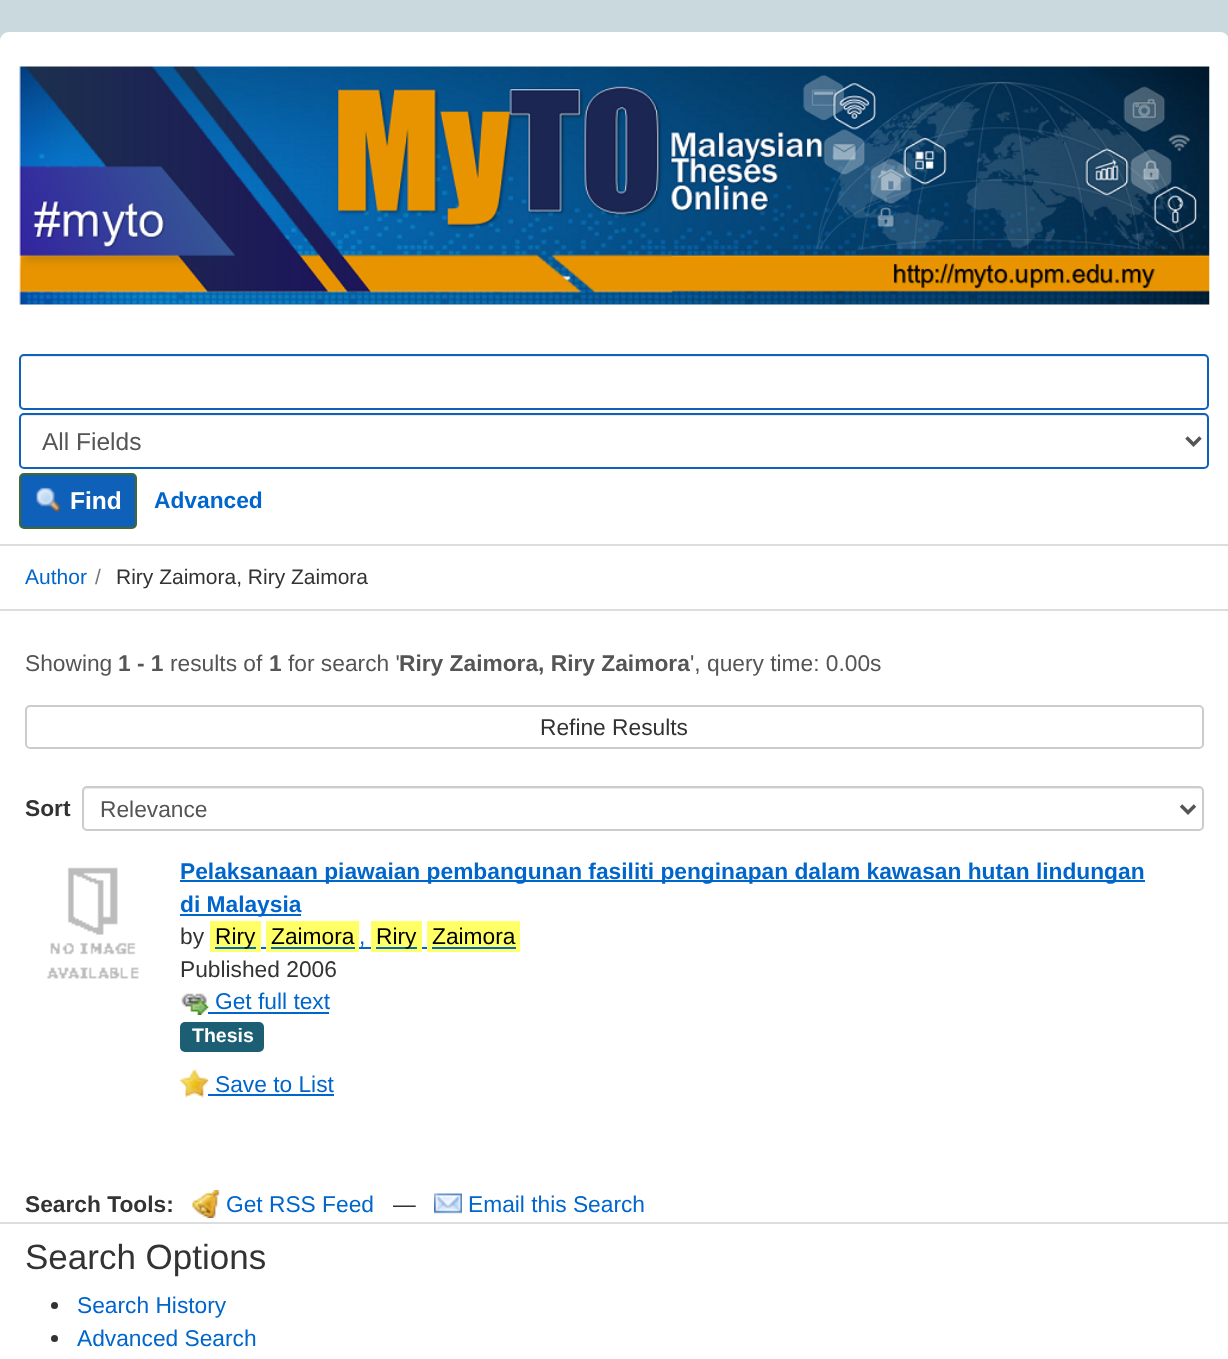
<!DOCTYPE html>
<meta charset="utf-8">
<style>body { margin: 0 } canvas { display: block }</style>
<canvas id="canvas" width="1228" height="1359"></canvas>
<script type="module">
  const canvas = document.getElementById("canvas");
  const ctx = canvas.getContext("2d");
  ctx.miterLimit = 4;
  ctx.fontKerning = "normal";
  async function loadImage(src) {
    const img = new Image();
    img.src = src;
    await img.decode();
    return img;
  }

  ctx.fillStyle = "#cad9de";
  ctx.fillRect(0, 0, 1228, 1359);
  ctx.fillStyle = "#ffffff";
  ctx.beginPath();
  ctx.moveTo(9, 32);
  ctx.lineTo(1220, 32);
  ctx.bezierCurveTo(1225, 32, 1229, 36, 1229, 41);
  ctx.lineTo(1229, 338);
  ctx.lineTo(0, 338);
  ctx.lineTo(0, 41);
  ctx.bezierCurveTo(0, 36, 4, 32, 9, 32);
  ctx.closePath();
  ctx.fill();
  ctx.drawImage(await loadImage("img1.png"), 19, 66, 1191, 239);
  ctx.fillRect(0, 338, 1228, 206);
  ctx.fillStyle = "#ececec";
  ctx.beginPath();
  ctx.moveTo(24, 357);
  ctx.lineTo(1204, 357);
  ctx.bezierCurveTo(1206, 357, 1208, 359, 1208, 360);
  ctx.bezierCurveTo(1208, 357, 1207, 355, 1204, 355);
  ctx.lineTo(25, 355);
  ctx.bezierCurveTo(22, 355, 21, 357, 21, 360);
  ctx.bezierCurveTo(21, 359, 23, 357, 24, 357);
  ctx.closePath();
  ctx.fill();
  ctx.beginPath();
  ctx.roundRect(20, 355, 1188, 54, 4);
  ctx.strokeStyle = "#0f60b8";
  ctx.lineWidth = 2;
  ctx.stroke();
  ctx.beginPath();
  ctx.moveTo(24, 416);
  ctx.lineTo(1204, 416);
  ctx.bezierCurveTo(1206, 416, 1208, 418, 1208, 420);
  ctx.bezierCurveTo(1208, 417, 1207, 415, 1204, 415);
  ctx.lineTo(25, 415);
  ctx.bezierCurveTo(22, 415, 21, 417, 21, 420);
  ctx.bezierCurveTo(21, 418, 23, 416, 24, 416);
  ctx.closePath();
  ctx.fill();
  ctx.beginPath();
  ctx.roundRect(20, 414, 1188, 54, 4);
  ctx.stroke();
  ctx.beginPath();
  ctx.moveTo(1186.5, 437.5);
  ctx.lineTo(1193.5, 444.5);
  ctx.lineTo(1200.5, 437.5);
  ctx.strokeStyle = "#555555";
  ctx.lineWidth = 3.5;
  ctx.stroke();
  ctx.font = "24.5px Liberation Sans";
  ctx.fillStyle = "#555555";
  ctx.fillText("All Fields", 42, 450);
  ctx.fillStyle = "#0f60b8";
  ctx.beginPath();
  ctx.roundRect(20, 474, 116, 54, 4);
  ctx.fill();
  ctx.strokeStyle = "#456730";
  ctx.lineWidth = 2;
  ctx.stroke();
  ctx.drawImage(await loadImage("img2.png"), 36, 487, 24, 26);
  ctx.font = "bold 24.5px Liberation Sans";
  ctx.fillStyle = "#ffffff";
  ctx.fillText("Find", 70, 509);
  ctx.font = "bold 22.75px Liberation Sans";
  ctx.fillStyle = "#0066cc";
  ctx.fillText("Advanced", 154, 508);
  ctx.fillStyle = "#ffffff";
  ctx.fillRect(0, 546, 1228, 63);
  ctx.fillStyle = "#dddddd";
  ctx.fillRect(0, 544, 1228, 2);
  ctx.fillRect(0, 609, 1228, 2);
  ctx.font = "21px Liberation Sans";
  ctx.fillStyle = "#0066cc";
  ctx.fillText("Author", 25, 584);
  ctx.fillStyle = "#777777";
  ctx.fillText("/", 95, 584);
  ctx.fillStyle = "#333333";
  ctx.fillText("Riry Zaimora, Riry Zaimora", 116, 584);
  ctx.fillStyle = "#ffffff";
  ctx.fillRect(0, 611, 1228, 611);
  ctx.font = "22.75px Liberation Sans";
  ctx.fillStyle = "#555555";
  ctx.fillText("Showing", 25, 671);
  ctx.font = "bold 22.75px Liberation Sans";
  ctx.fillText("1 - 1", 118, 671);
  ctx.font = "22.75px Liberation Sans";
  ctx.fillText("results of", 170, 671);
  ctx.font = "bold 22.75px Liberation Sans";
  ctx.fillText("1", 269, 671);
  ctx.font = "22.75px Liberation Sans";
  ctx.fillText("for search '", 288, 671);
  ctx.font = "bold 22.75px Liberation Sans";
  ctx.fillText("Riry Zaimora, Riry Zaimora", 399, 671);
  ctx.font = "22.75px Liberation Sans";
  ctx.fillText("', query time: 0.00s", 690, 671);
  ctx.beginPath();
  ctx.roundRect(26, 706, 1177, 42, 4);
  ctx.strokeStyle = "#cccccc";
  ctx.stroke();
  ctx.fillStyle = "#333333";
  ctx.fillText("Refine Results", 540, 735);
  ctx.font = "bold 22.75px Liberation Sans";
  ctx.fillText("Sort", 25, 816);
  ctx.fillStyle = "#ececec";
  ctx.beginPath();
  ctx.moveTo(88, 789);
  ctx.lineTo(1199, 789);
  ctx.bezierCurveTo(1201, 789, 1202, 791, 1202, 793);
  ctx.bezierCurveTo(1202, 790, 1201, 788, 1198, 788);
  ctx.lineTo(88, 788);
  ctx.bezierCurveTo(85, 788, 84, 790, 84, 793);
  ctx.bezierCurveTo(84, 791, 86, 789, 88, 789);
  ctx.closePath();
  ctx.fill();
  ctx.beginPath();
  ctx.roundRect(83, 787, 1120, 43, 4);
  ctx.stroke();
  ctx.beginPath();
  ctx.moveTo(1181, 805.5);
  ctx.lineTo(1188, 812.5);
  ctx.lineTo(1195, 805.5);
  ctx.strokeStyle = "#555555";
  ctx.lineWidth = 3.5;
  ctx.stroke();
  ctx.font = "22.75px Liberation Sans";
  ctx.fillStyle = "#555555";
  ctx.fillText("Relevance", 100, 817);
  ctx.drawImage(await loadImage("img3.png"), 47, 867, 92, 112);
  ctx.fillStyle = "#0066cc";
  ctx.fillRect(180, 880, 965, 2);
  ctx.font = "bold 22.75px Liberation Sans";
  ctx.fillText("Pelaksanaan piawaian pembangunan fasiliti penginapan dalam kawasan hutan lindungan", 180, 879);
  ctx.fillRect(180, 914, 121, 2);
  ctx.fillText("di Malaysia", 180, 912);
  ctx.font = "22.75px Liberation Sans";
  ctx.fillStyle = "#333333";
  ctx.fillText("by", 180, 944);
  ctx.fillStyle = "#ffff66";
  ctx.fillRect(210, 921, 51, 31);
  ctx.fillStyle = "#0066cc";
  ctx.fillRect(215, 947, 41, 2);
  ctx.fillStyle = "#000000";
  ctx.fillText("Riry", 215, 944);
  ctx.fillStyle = "#0066cc";
  ctx.fillRect(261, 947, 5, 2);
  ctx.fillStyle = "#ffff66";
  ctx.fillRect(266, 921, 93, 31);
  ctx.fillStyle = "#000000";
  ctx.fillText("Zaimora", 271, 944);
  ctx.fillStyle = "#0066cc";
  ctx.fillText(",", 359, 944);
  ctx.fillRect(271, 947, 84, 2);
  ctx.fillRect(359, 947, 12, 2);
  ctx.fillStyle = "#ffff66";
  ctx.fillRect(371, 921, 51, 31);
  ctx.fillStyle = "#0066cc";
  ctx.fillRect(376, 947, 41, 2);
  ctx.fillStyle = "#000000";
  ctx.fillText("Riry", 376, 944);
  ctx.fillStyle = "#0066cc";
  ctx.fillRect(422, 947, 5, 2);
  ctx.fillStyle = "#ffff66";
  ctx.fillRect(427, 921, 93, 31);
  ctx.fillStyle = "#000000";
  ctx.fillText("Zaimora", 432, 944);
  ctx.fillStyle = "#0066cc";
  ctx.fillRect(432, 947, 84, 2);
  ctx.fillStyle = "#333333";
  ctx.fillText("Published 2006", 180, 977);
  ctx.drawImage(await loadImage("img4.png"), 181, 993, 28, 22);
  ctx.fillStyle = "#0066cc";
  ctx.fillText("Get full text", 215, 1009);
  ctx.fillRect(208, 1012, 121, 2);
  ctx.fillStyle = "#1c5f74";
  ctx.beginPath();
  ctx.roundRect(180, 1022, 84, 30, 5);
  ctx.fill();
  ctx.font = "bold 19.5px Liberation Sans";
  ctx.fillStyle = "#ffffff";
  ctx.fillText("Thesis", 192, 1042);
  ctx.drawImage(await loadImage("img5.png"), 180, 1069, 29, 29);
  ctx.font = "22.75px Liberation Sans";
  ctx.fillStyle = "#0066cc";
  ctx.fillText("Save to List", 215, 1092);
  ctx.fillRect(208, 1094, 126, 2);
  ctx.font = "bold 22.75px Liberation Sans";
  ctx.fillStyle = "#333333";
  ctx.fillText("Search Tools:", 25, 1212);
  ctx.drawImage(await loadImage("img6.png"), 192, 1190, 28, 28);
  ctx.font = "22.75px Liberation Sans";
  ctx.fillStyle = "#0066cc";
  ctx.fillText("Get RSS Feed", 226, 1212);
  ctx.fillStyle = "#333333";
  ctx.fillText("—", 393, 1212);
  ctx.drawImage(await loadImage("img7.png"), 434, 1193, 28, 21);
  ctx.fillStyle = "#0066cc";
  ctx.fillText("Email this Search", 468, 1212);
  ctx.fillStyle = "#ffffff";
  ctx.fillRect(0, 1224, 1228, 135);
  ctx.fillStyle = "#dddddd";
  ctx.fillRect(0, 1222, 1228, 2);
  ctx.font = "35px Liberation Sans";
  ctx.fillStyle = "#333333";
  ctx.fillText("Search Options", 25, 1269);
  ctx.beginPath();
  ctx.arc(54.5, 1305.5, 3.5, 0, Math.PI * 2);
  ctx.fill();
  ctx.font = "22.75px Liberation Sans";
  ctx.fillStyle = "#0066cc";
  ctx.fillText("Search History", 77, 1313);
  ctx.fillStyle = "#333333";
  ctx.beginPath();
  ctx.arc(54.5, 1338.5, 3.5, 0, Math.PI * 2);
  ctx.fill();
  ctx.fillStyle = "#0066cc";
  ctx.fillText("Advanced Search", 77, 1346);
</script>
